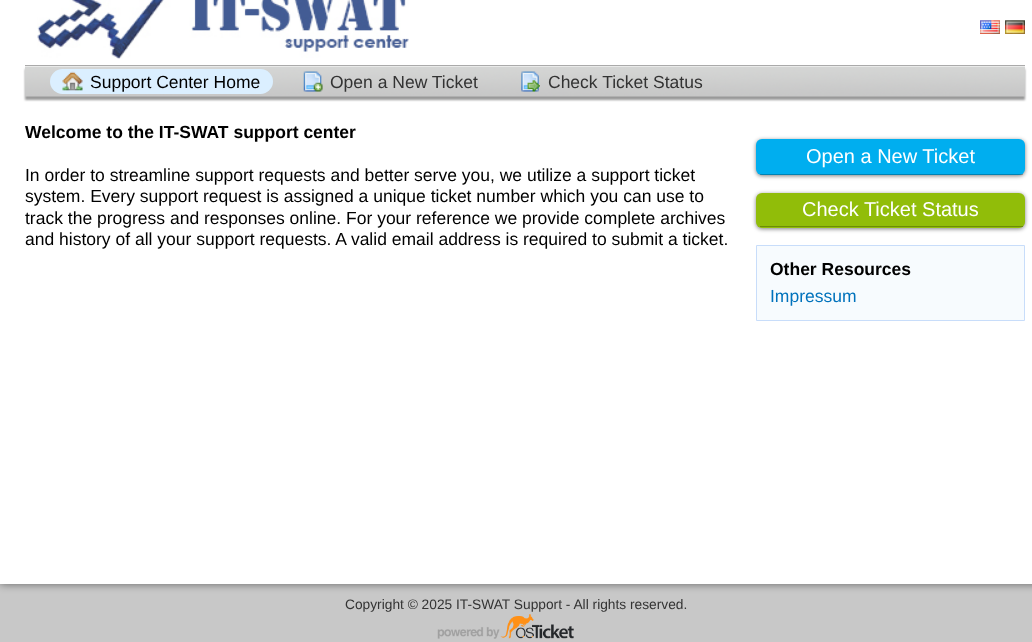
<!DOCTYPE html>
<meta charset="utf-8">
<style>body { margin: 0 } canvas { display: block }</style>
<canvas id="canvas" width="1032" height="642"></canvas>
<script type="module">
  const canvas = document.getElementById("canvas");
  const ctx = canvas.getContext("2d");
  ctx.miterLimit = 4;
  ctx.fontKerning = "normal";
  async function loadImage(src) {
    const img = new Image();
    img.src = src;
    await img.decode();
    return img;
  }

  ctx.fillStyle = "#c8c8c8";
  ctx.fillRect(0, 0, 1032, 642);
  ctx.fillStyle = "rgba(0, 0, 0, 0.5)";
  ctx.filter = "blur(4px)";
  ctx.beginPath();
  ctx.rect(0, -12, 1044, 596);
  ctx.fill();
  ctx.filter = "none";
  ctx.fillStyle = "#ffffff";
  ctx.fillRect(0, 0, 1032, 584);
  ctx.drawImage(await loadImage("img1.png"), 37, 0, 372, 59);
  ctx.drawImage(await loadImage("img2.png"), 980, 20, 20, 14);
  ctx.drawImage(await loadImage("img3.png"), 1005, 20, 20, 14);
  ctx.fillStyle = "rgba(0, 0, 0, 0.4)";
  ctx.filter = "blur(1px)";
  ctx.beginPath();
  ctx.rect(25, 69, 1000, 31);
  ctx.fill();
  ctx.filter = "none";
  ctx.drawImage(await loadImage("img4.png"), 25, 66, 1000, 31);
  ctx.fillStyle = "#aaaaaa";
  ctx.fillRect(25, 65, 1000, 1);
  ctx.fillStyle = "#dbefff";
  ctx.beginPath();
  ctx.roundRect(50, 69, 223, 25, 12.5);
  ctx.fill();
  ctx.drawImage(await loadImage("img5.png"), 62, 71, 21, 20);
  ctx.font = "17.5px Liberation Sans";
  ctx.fillStyle = "#000000";
  ctx.fillText("Support Center Home", 90, 88);
  ctx.drawImage(await loadImage("img6.png"), 303, 71, 20, 21);
  ctx.fillStyle = "#333333";
  ctx.fillText("Open a New Ticket", 330, 88);
  ctx.drawImage(await loadImage("img7.png"), 521, 71, 19, 21);
  ctx.fillText("Check Ticket Status", 548, 88);
  ctx.font = "bold 17.5px Liberation Sans";
  ctx.fillStyle = "#000000";
  ctx.fillText("Welcome to the IT-SWAT support center", 25, 138);
  ctx.font = "17.5px Liberation Sans";
  ctx.fillText("In order to streamline support requests and better serve you, we utilize a support ticket", 25, 181);
  ctx.fillText("system. Every support request is assigned a unique ticket number which you can use to", 25, 202);
  ctx.fillText("track the progress and responses online. For your reference we provide complete archives", 25, 224);
  ctx.fillText("and history of all your support requests. A valid email address is required to submit a ticket.", 25, 245);
  ctx.fillStyle = "rgba(0, 0, 0, 0.5)";
  ctx.filter = "blur(2px)";
  ctx.beginPath();
  ctx.roundRect(756, 140, 269, 36, 6);
  ctx.fill();
  ctx.filter = "none";
  ctx.fillStyle = "#00aeef";
  ctx.beginPath();
  ctx.roundRect(756, 139, 269, 36, 6);
  ctx.fill();
  ctx.fillStyle = "rgba(0, 0, 0, 0.25)";
  ctx.fillRect(760, 174, 263, 1);
  ctx.font = "20px Liberation Sans";
  ctx.fillStyle = "#ffffff";
  ctx.fillText("Open a New Ticket", 806, 163);
  ctx.fillStyle = "rgba(0, 0, 0, 0.5)";
  ctx.filter = "blur(2px)";
  ctx.beginPath();
  ctx.roundRect(756, 194, 269, 35, 6);
  ctx.fill();
  ctx.filter = "none";
  ctx.fillStyle = "#91bd09";
  ctx.beginPath();
  ctx.roundRect(756, 193, 269, 35, 6);
  ctx.fill();
  ctx.fillStyle = "rgba(0, 0, 0, 0.25)";
  ctx.fillRect(760, 226, 263, 1);
  ctx.fillStyle = "#ffffff";
  ctx.fillText("Check Ticket Status", 802, 216);
  ctx.fillStyle = "#f7fbfe";
  ctx.beginPath();
  ctx.rect(756.5, 245.5, 268, 75);
  ctx.fill();
  ctx.strokeStyle = "#c8ddfa";
  ctx.stroke();
  ctx.font = "bold 17.5px Liberation Sans";
  ctx.fillStyle = "#000000";
  ctx.fillText("Other Resources", 770, 275);
  ctx.font = "17.5px Liberation Sans";
  ctx.fillStyle = "#0072bc";
  ctx.fillText("Impressum", 770, 302);
  ctx.font = "13.75px Liberation Sans";
  ctx.fillStyle = "#333333";
  ctx.fillText("Copyright © 2025 IT-SWAT Support - All rights reserved.", 345, 609);
  ctx.drawImage(await loadImage("img8.png"), 437, 614, 137, 25);
</script>
